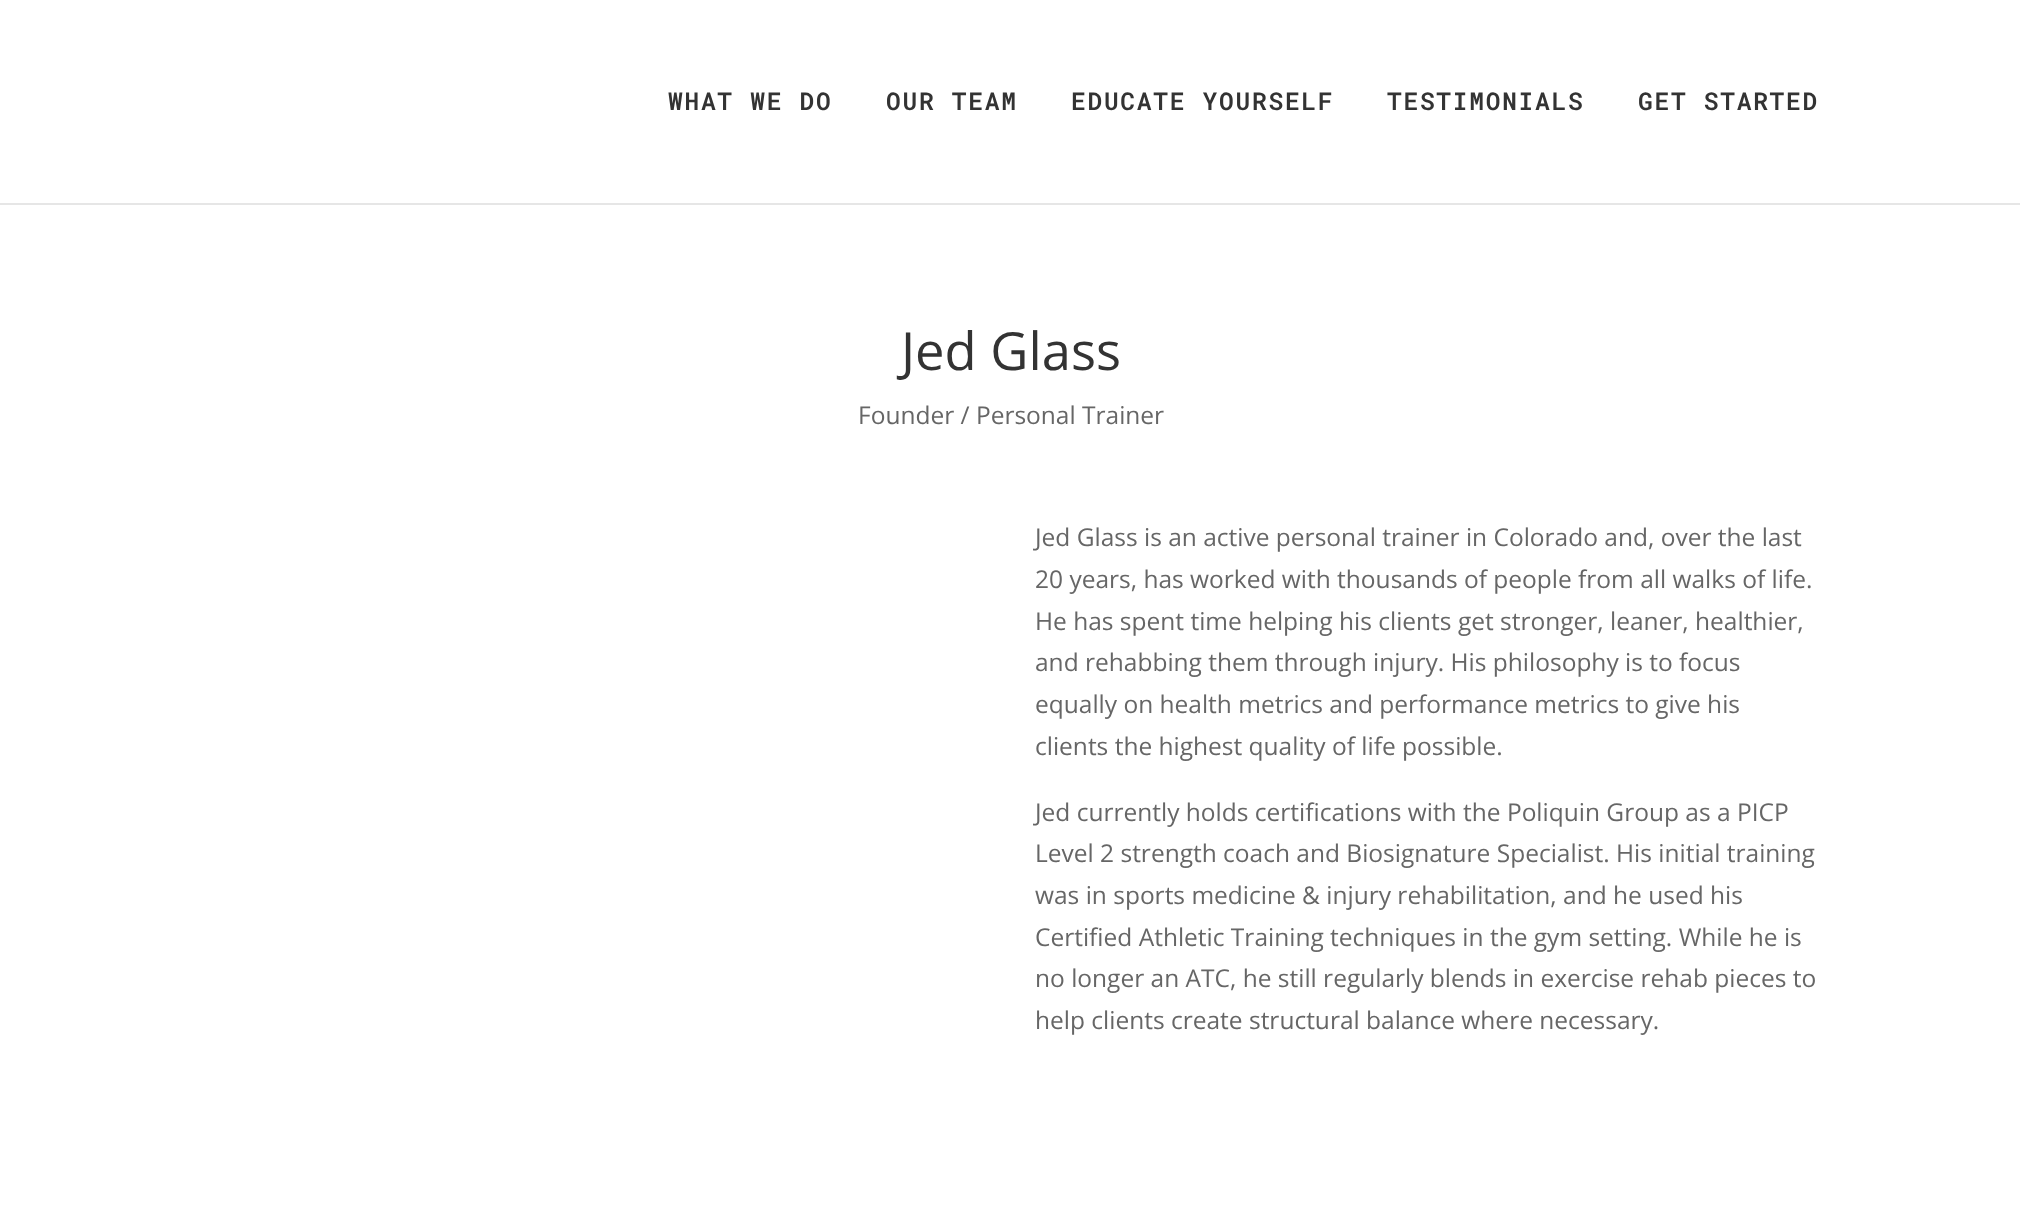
<!DOCTYPE html>
<meta charset="utf-8">
<style>body { margin: 0 } canvas { display: block }</style>
<canvas id="canvas" width="2020" height="1230"></canvas>
<script type="module">
  const canvas = document.getElementById("canvas");
  const ctx = canvas.getContext("2d");
  ctx.miterLimit = 4;
  ctx.fontKerning = "normal";

  ctx.fillStyle = "#ffffff";
  ctx.fillRect(0, 0, 2020, 1230);
  ctx.fillStyle = "#e6e6e6";
  ctx.fillRect(0, 203, 2020, 2);
  ctx.letterSpacing = "1.75px";
  ctx.font = "600 24.5px Roboto Mono";
  ctx.fillStyle = "#333333";
  ctx.fillText("WHAT WE DO", 668, 110);
  ctx.fillText("OUR TEAM", 886, 110);
  ctx.fillText("EDUCATE YOURSELF", 1071, 110);
  ctx.fillText("TESTIMONIALS", 1387, 110);
  ctx.fillText("GET STARTED", 1638, 110);
  ctx.letterSpacing = "0px";
  ctx.font = "52.5px Open Sans";
  ctx.fillText("Jed Glass", 901, 370);
  ctx.font = "24.5px Open Sans";
  ctx.fillStyle = "#666666";
  ctx.fillText("Founder / Personal Trainer", 858, 424);
  ctx.fillText("Jed Glass is an active personal trainer in Colorado and, over the last", 1035, 546);
  ctx.fillText("20 years, has worked with thousands of people from all walks of life.", 1035, 588);
  ctx.fillText("He has spent time helping his clients get stronger, leaner, healthier,", 1035, 630);
  ctx.fillText("and rehabbing them through injury. His philosophy is to focus", 1035, 671);
  ctx.fillText("equally on health metrics and performance metrics to give his", 1035, 713);
  ctx.fillText("clients the highest quality of life possible.", 1035, 755);
  ctx.fillText("Jed currently holds certifications with the Poliquin Group as a PICP", 1035, 821);
  ctx.fillText("Level 2 strength coach and Biosignature Specialist. His initial training", 1035, 862);
  ctx.fillText("was in sports medicine & injury rehabilitation, and he used his", 1035, 904);
  ctx.fillText("Certified Athletic Training techniques in the gym setting. While he is", 1035, 946);
  ctx.fillText("no longer an ATC, he still regularly blends in exercise rehab pieces to", 1035, 987);
  ctx.fillText("help clients create structural balance where necessary.", 1035, 1029);
</script>
